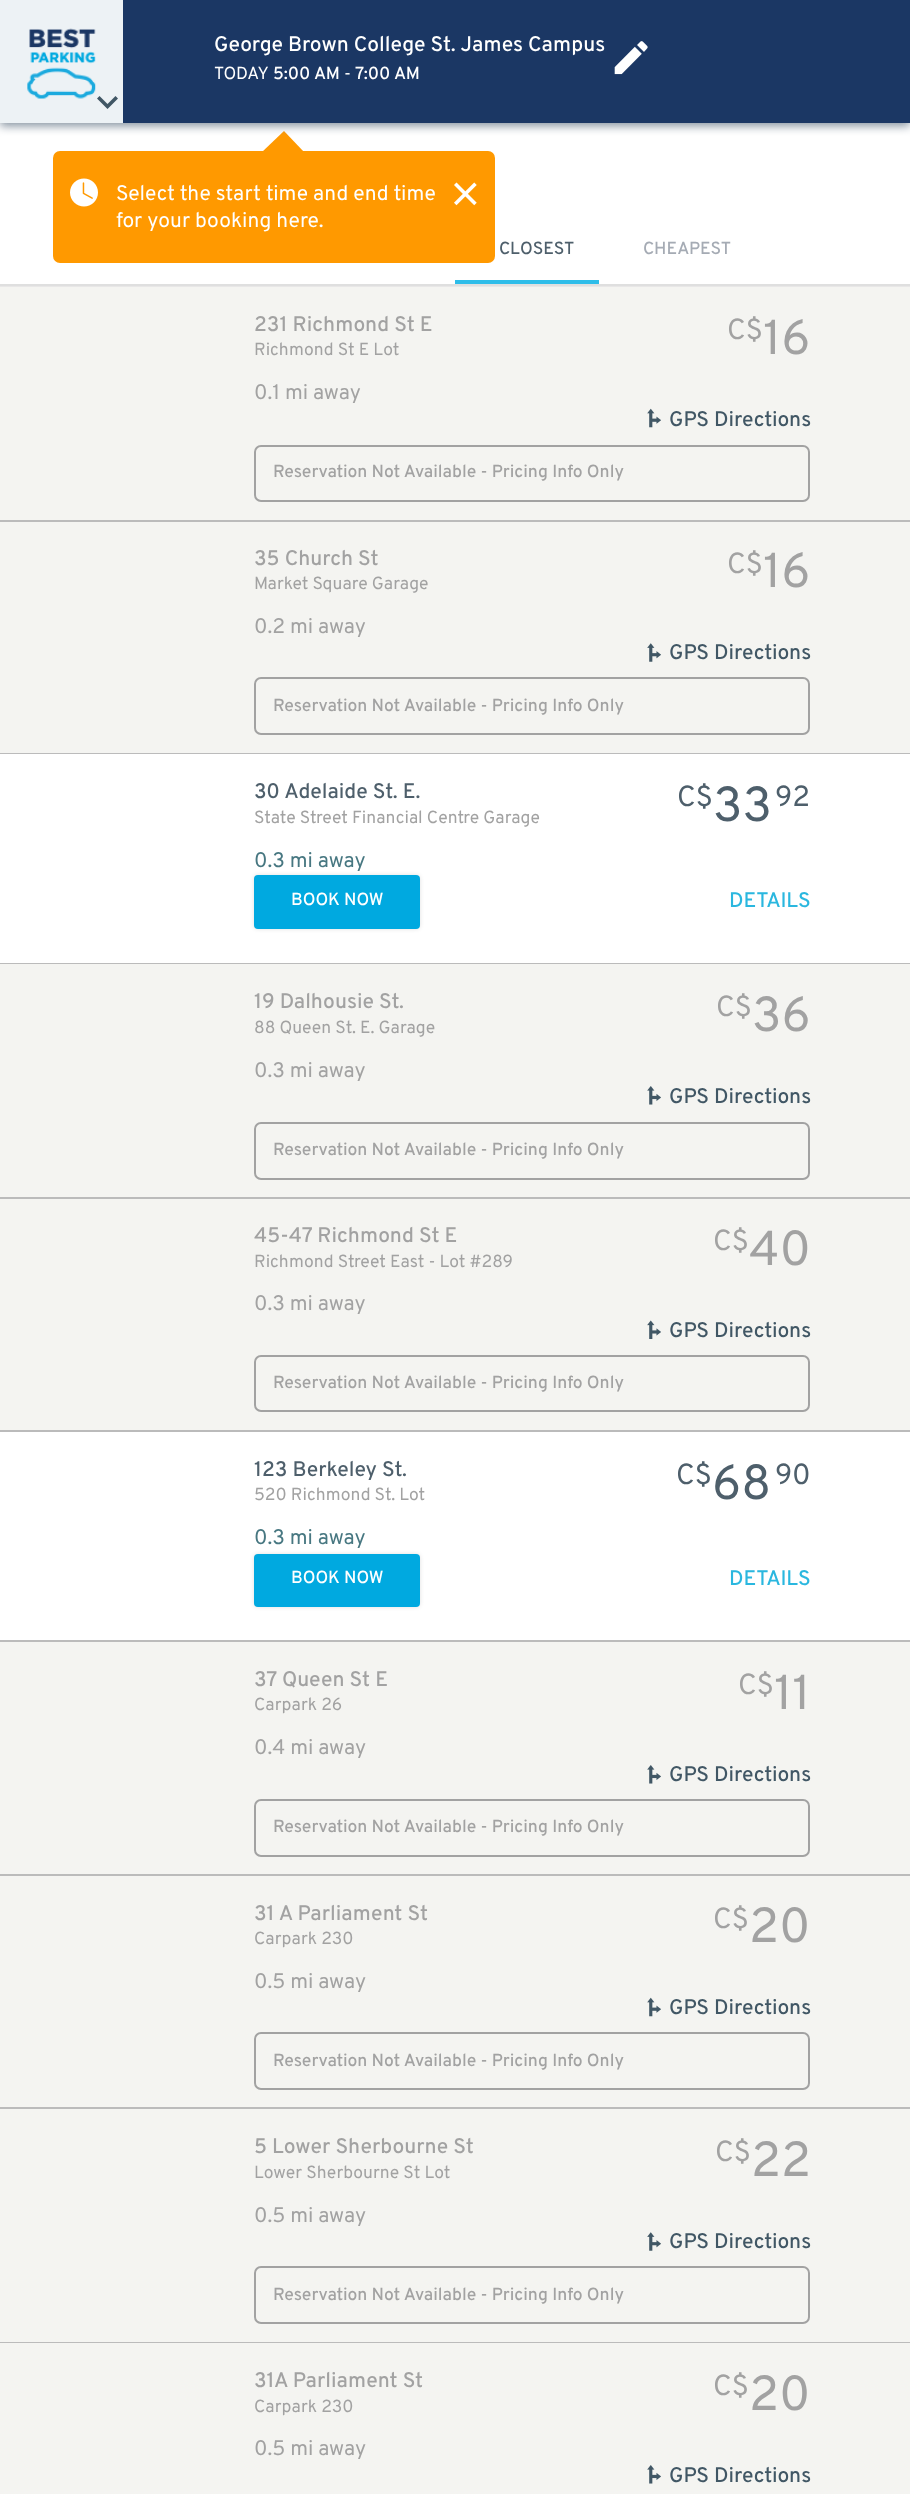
<!DOCTYPE html>
<meta charset="utf-8">
<style>body { margin: 0 } canvas { display: block }</style>
<canvas id="canvas" width="910" height="2494"></canvas>
<script type="module">
  const canvas = document.getElementById("canvas");
  const ctx = canvas.getContext("2d");
  ctx.miterLimit = 4;
  ctx.fontKerning = "normal";
  async function loadImage(src) {
    const img = new Image();
    img.src = src;
    await img.decode();
    return img;
  }

  ctx.fillStyle = "#ffffff";
  ctx.fillRect(0, 0, 910, 2494);
  ctx.fillStyle = "#ff9900";
  ctx.beginPath();
  ctx.roundRect(53, 151, 442, 112, 7);
  ctx.fill();
  ctx.beginPath();
  ctx.moveTo(304, 152);
  ctx.lineTo(262, 152);
  ctx.lineTo(284, 131);
  ctx.closePath();
  ctx.fill();
  ctx.fillStyle = "#84919e";
  ctx.filter = "blur(5px)";
  ctx.beginPath();
  ctx.rect(0, 4, 910, 122);
  ctx.fill();
  ctx.filter = "none";
  ctx.fillStyle = "#1b3764";
  ctx.fillRect(123, 0, 787, 123);
  ctx.fillStyle = "#edf2f5";
  ctx.fillRect(0, 0, 123, 123);
  ctx.drawImage(await loadImage("img1.png"), 27, 28, 69, 71);
  ctx.fillStyle = "#415765";
  ctx.beginPath();
  ctx.moveTo(115.5, 96);
  ctx.lineTo(118, 98.5);
  ctx.lineTo(107.5, 109);
  ctx.lineTo(97, 98.5);
  ctx.lineTo(99.5, 96);
  ctx.lineTo(107.5, 104);
  ctx.closePath();
  ctx.fill();
  ctx.font = "500 21px Overpass";
  ctx.fillStyle = "#ffffff";
  ctx.fillText("George Brown College St. James Campus", 214, 51);
  ctx.font = "17.5px Overpass";
  ctx.fillText("TODAY", 214, 79);
  ctx.font = "500 17.5px Overpass";
  ctx.fillText("5:00 AM", 273, 79);
  ctx.font = "17.5px Overpass";
  ctx.fillText("-", 344, 79);
  ctx.font = "500 17.5px Overpass";
  ctx.fillText("7:00 AM", 355, 79);
  ctx.drawImage(await loadImage("img2.png"), 614, 41, 34, 34);
  ctx.drawImage(await loadImage("img3.png"), 70, 178, 28, 29);
  ctx.font = "21px Overpass";
  ctx.fillText("Select the start time and end time", 116, 200);
  ctx.fillText("for your booking here.", 116, 227);
  ctx.drawImage(await loadImage("img4.png"), 454, 182, 23, 24);
  ctx.fillStyle = "#e8e7e7";
  ctx.fillRect(0, 286, 910, 1);
  ctx.fillStyle = "#dfdfdf";
  ctx.fillRect(0, 284, 910, 2);
  ctx.font = "500 17.5px Overpass";
  ctx.fillStyle = "#4e5f6b";
  ctx.fillText("CLOSEST", 499, 254);
  ctx.fillStyle = "#a5abb4";
  ctx.fillText("CHEAPEST", 643, 254);
  ctx.fillStyle = "#2ebde9";
  ctx.fillRect(455, 280, 144, 4);
  ctx.fillStyle = "#f4f4f1";
  ctx.fillRect(0, 287, 910, 233);
  ctx.fillStyle = "#bbbbbb";
  ctx.fillRect(0, 520, 910, 2);
  ctx.font = "500 21px Overpass";
  ctx.fillStyle = "#a2a2a2";
  ctx.fillText("231 Richmond St E", 254, 331);
  ctx.font = "17.5px Overpass";
  ctx.fillText("Richmond St E Lot", 254, 355);
  ctx.font = "21px Overpass";
  ctx.fillText("0.1 mi away", 254, 399);
  ctx.font = "29px Overpass";
  ctx.fillText("C$", 727, 339);
  ctx.font = "49px Overpass";
  ctx.fillText("16", 763, 354);
  ctx.drawImage(await loadImage("img5.png"), 647, 408, 14, 20);
  ctx.font = "500 21px Overpass";
  ctx.fillStyle = "#415765";
  ctx.fillText("GPS Directions", 669, 426);
  ctx.beginPath();
  ctx.roundRect(255, 446, 554, 55, 6);
  ctx.strokeStyle = "#a2a2a2";
  ctx.lineWidth = 2;
  ctx.stroke();
  ctx.font = "500 17.5px Overpass";
  ctx.fillStyle = "#a2a2a2";
  ctx.fillText("Reservation Not Available - Pricing Info Only", 273, 477);
  ctx.fillStyle = "#f4f4f1";
  ctx.fillRect(0, 522, 910, 231);
  ctx.fillStyle = "#bbbbbb";
  ctx.fillRect(0, 753, 910, 1);
  ctx.font = "500 21px Overpass";
  ctx.fillStyle = "#a2a2a2";
  ctx.fillText("35 Church St", 254, 565);
  ctx.font = "17.5px Overpass";
  ctx.fillText("Market Square Garage", 254, 589);
  ctx.font = "21px Overpass";
  ctx.fillText("0.2 mi away", 254, 633);
  ctx.font = "29px Overpass";
  ctx.fillText("C$", 727, 573);
  ctx.font = "49px Overpass";
  ctx.fillText("16", 763, 587);
  ctx.drawImage(await loadImage("img6.png"), 647, 643, 14, 19);
  ctx.font = "500 21px Overpass";
  ctx.fillStyle = "#415765";
  ctx.fillText("GPS Directions", 669, 659);
  ctx.beginPath();
  ctx.roundRect(255, 678, 554, 56, 6);
  ctx.stroke();
  ctx.font = "500 17.5px Overpass";
  ctx.fillStyle = "#a2a2a2";
  ctx.fillText("Reservation Not Available - Pricing Info Only", 273, 711);
  ctx.fillStyle = "#bbbbbb";
  ctx.fillRect(0, 963, 910, 1);
  ctx.font = "500 21px Overpass";
  ctx.fillStyle = "#4e5f6b";
  ctx.fillText("30 Adelaide St. E.", 254, 798);
  ctx.font = "17.5px Overpass";
  ctx.fillStyle = "#a2a2a2";
  ctx.fillText("State Street Financial Centre Garage", 254, 823);
  ctx.font = "21px Overpass";
  ctx.fillStyle = "#477781";
  ctx.fillText("0.3 mi away", 254, 867);
  ctx.font = "29px Overpass";
  ctx.fillStyle = "#4e5f6b";
  ctx.fillText("C$", 677, 806);
  ctx.font = "49px Overpass";
  ctx.fillText("33", 713, 821);
  ctx.font = "29px Overpass";
  ctx.fillText("92", 775, 806);
  ctx.fillStyle = "rgba(0, 0, 0, 0.12)";
  ctx.filter = "blur(2px)";
  ctx.beginPath();
  ctx.roundRect(254, 875, 166, 54, 4);
  ctx.fill();
  ctx.filter = "none";
  ctx.fillStyle = "#00a9e0";
  ctx.beginPath();
  ctx.roundRect(254, 875, 166, 54, 4);
  ctx.fill();
  ctx.font = "500 17.5px Overpass";
  ctx.fillStyle = "#ffffff";
  ctx.fillText("BOOK NOW", 291, 905);
  ctx.font = "500 21px Overpass";
  ctx.fillStyle = "#2ab7df";
  ctx.fillText("DETAILS", 729, 907);
  ctx.fillStyle = "#f4f4f1";
  ctx.fillRect(0, 964, 910, 233);
  ctx.fillStyle = "#bbbbbb";
  ctx.fillRect(0, 1197, 910, 2);
  ctx.fillStyle = "#a2a2a2";
  ctx.fillText("19 Dalhousie St.", 254, 1008);
  ctx.font = "17.5px Overpass";
  ctx.fillText("88 Queen St. E. Garage", 254, 1033);
  ctx.font = "21px Overpass";
  ctx.fillText("0.3 mi away", 254, 1077);
  ctx.font = "29px Overpass";
  ctx.fillText("C$", 716, 1016);
  ctx.font = "49px Overpass";
  ctx.fillText("36", 752, 1031);
  ctx.drawImage(await loadImage("img7.png"), 647, 1086, 14, 19);
  ctx.font = "500 21px Overpass";
  ctx.fillStyle = "#415765";
  ctx.fillText("GPS Directions", 669, 1103);
  ctx.beginPath();
  ctx.roundRect(255, 1123, 554, 56, 6);
  ctx.stroke();
  ctx.font = "500 17.5px Overpass";
  ctx.fillStyle = "#a2a2a2";
  ctx.fillText("Reservation Not Available - Pricing Info Only", 273, 1155);
  ctx.fillStyle = "#f4f4f1";
  ctx.fillRect(0, 1199, 910, 231);
  ctx.fillStyle = "#bbbbbb";
  ctx.fillRect(0, 1430, 910, 2);
  ctx.font = "500 21px Overpass";
  ctx.fillStyle = "#a2a2a2";
  ctx.fillText("45-47 Richmond St E", 254, 1242);
  ctx.font = "17.5px Overpass";
  ctx.fillText("Richmond Street East - Lot #289", 254, 1267);
  ctx.font = "21px Overpass";
  ctx.fillText("0.3 mi away", 254, 1310);
  ctx.font = "29px Overpass";
  ctx.fillText("C$", 713, 1250);
  ctx.font = "49px Overpass";
  ctx.fillText("40", 749, 1265);
  ctx.drawImage(await loadImage("img8.png"), 647, 1320, 14, 19);
  ctx.font = "500 21px Overpass";
  ctx.fillStyle = "#415765";
  ctx.fillText("GPS Directions", 669, 1337);
  ctx.beginPath();
  ctx.roundRect(255, 1356, 554, 55, 6);
  ctx.stroke();
  ctx.font = "500 17.5px Overpass";
  ctx.fillStyle = "#a2a2a2";
  ctx.fillText("Reservation Not Available - Pricing Info Only", 273, 1388);
  ctx.fillStyle = "#bbbbbb";
  ctx.fillRect(0, 1640, 910, 2);
  ctx.font = "500 21px Overpass";
  ctx.fillStyle = "#4e5f6b";
  ctx.fillText("123 Berkeley St.", 254, 1476);
  ctx.font = "17.5px Overpass";
  ctx.fillStyle = "#a2a2a2";
  ctx.fillText("520 Richmond St. Lot", 254, 1500);
  ctx.font = "21px Overpass";
  ctx.fillStyle = "#477781";
  ctx.fillText("0.3 mi away", 254, 1544);
  ctx.font = "29px Overpass";
  ctx.fillStyle = "#4e5f6b";
  ctx.fillText("C$", 676, 1484);
  ctx.font = "49px Overpass";
  ctx.fillText("68", 712, 1499);
  ctx.font = "29px Overpass";
  ctx.fillText("90", 775, 1484);
  ctx.fillStyle = "rgba(0, 0, 0, 0.12)";
  ctx.filter = "blur(2px)";
  ctx.beginPath();
  ctx.roundRect(254, 1554, 166, 53, 4);
  ctx.fill();
  ctx.filter = "none";
  ctx.fillStyle = "#00a9e0";
  ctx.beginPath();
  ctx.roundRect(254, 1554, 166, 53, 4);
  ctx.fill();
  ctx.font = "500 17.5px Overpass";
  ctx.fillStyle = "#ffffff";
  ctx.fillText("BOOK NOW", 291, 1583);
  ctx.font = "500 21px Overpass";
  ctx.fillStyle = "#2ab7df";
  ctx.fillText("DETAILS", 729, 1585);
  ctx.fillStyle = "#f4f4f1";
  ctx.fillRect(0, 1642, 910, 232);
  ctx.fillStyle = "#bbbbbb";
  ctx.fillRect(0, 1874, 910, 2);
  ctx.fillStyle = "#a2a2a2";
  ctx.fillText("37 Queen St E", 254, 1686);
  ctx.font = "17.5px Overpass";
  ctx.fillText("Carpark 26", 254, 1710);
  ctx.font = "21px Overpass";
  ctx.fillText("0.4 mi away", 254, 1754);
  ctx.font = "29px Overpass";
  ctx.fillText("C$", 738, 1694);
  ctx.font = "49px Overpass";
  ctx.fillText("11", 774, 1709);
  ctx.drawImage(await loadImage("img7.png"), 647, 1765, 14, 19);
  ctx.font = "500 21px Overpass";
  ctx.fillStyle = "#415765";
  ctx.fillText("GPS Directions", 669, 1781);
  ctx.beginPath();
  ctx.roundRect(255, 1800, 554, 56, 6);
  ctx.stroke();
  ctx.font = "500 17.5px Overpass";
  ctx.fillStyle = "#a2a2a2";
  ctx.fillText("Reservation Not Available - Pricing Info Only", 273, 1832);
  ctx.fillStyle = "#f4f4f1";
  ctx.fillRect(0, 1876, 910, 231);
  ctx.fillStyle = "#bbbbbb";
  ctx.fillRect(0, 2107, 910, 2);
  ctx.font = "500 21px Overpass";
  ctx.fillStyle = "#a2a2a2";
  ctx.fillText("31 A Parliament St", 254, 1920);
  ctx.font = "17.5px Overpass";
  ctx.fillText("Carpark 230", 254, 1944);
  ctx.font = "21px Overpass";
  ctx.fillText("0.5 mi away", 254, 1988);
  ctx.font = "29px Overpass";
  ctx.fillText("C$", 713, 1928);
  ctx.font = "49px Overpass";
  ctx.fillText("20", 749, 1942);
  ctx.drawImage(await loadImage("img5.png"), 647, 1997, 14, 20);
  ctx.font = "500 21px Overpass";
  ctx.fillStyle = "#415765";
  ctx.fillText("GPS Directions", 669, 2014);
  ctx.beginPath();
  ctx.roundRect(255, 2033, 554, 56, 6);
  ctx.stroke();
  ctx.font = "500 17.5px Overpass";
  ctx.fillStyle = "#a2a2a2";
  ctx.fillText("Reservation Not Available - Pricing Info Only", 273, 2066);
  ctx.fillStyle = "#f4f4f1";
  ctx.fillRect(0, 2109, 910, 233);
  ctx.fillStyle = "#bbbbbb";
  ctx.fillRect(0, 2342, 910, 1);
  ctx.font = "500 21px Overpass";
  ctx.fillStyle = "#a2a2a2";
  ctx.fillText("5 Lower Sherbourne St", 254, 2153);
  ctx.font = "17.5px Overpass";
  ctx.fillText("Lower Sherbourne St Lot", 254, 2178);
  ctx.font = "21px Overpass";
  ctx.fillText("0.5 mi away", 254, 2222);
  ctx.font = "29px Overpass";
  ctx.fillText("C$", 715, 2161);
  ctx.font = "49px Overpass";
  ctx.fillText("22", 751, 2176);
  ctx.drawImage(await loadImage("img6.png"), 647, 2232, 14, 19);
  ctx.font = "500 21px Overpass";
  ctx.fillStyle = "#415765";
  ctx.fillText("GPS Directions", 669, 2248);
  ctx.beginPath();
  ctx.roundRect(255, 2267, 554, 56, 6);
  ctx.stroke();
  ctx.font = "500 17.5px Overpass";
  ctx.fillStyle = "#a2a2a2";
  ctx.fillText("Reservation Not Available - Pricing Info Only", 273, 2300);
  ctx.fillStyle = "#f4f4f1";
  ctx.fillRect(0, 2343, 910, 151);
  ctx.font = "500 21px Overpass";
  ctx.fillStyle = "#a2a2a2";
  ctx.fillText("31A Parliament St", 254, 2387);
  ctx.font = "17.5px Overpass";
  ctx.fillText("Carpark 230", 254, 2412);
  ctx.font = "21px Overpass";
  ctx.fillText("0.5 mi away", 254, 2455);
  ctx.font = "29px Overpass";
  ctx.fillText("C$", 713, 2395);
  ctx.font = "49px Overpass";
  ctx.fillText("20", 749, 2410);
  ctx.drawImage(await loadImage("img7.png"), 647, 2465, 14, 19);
  ctx.font = "500 21px Overpass";
  ctx.fillStyle = "#415765";
  ctx.fillText("GPS Directions", 669, 2482);
</script>
